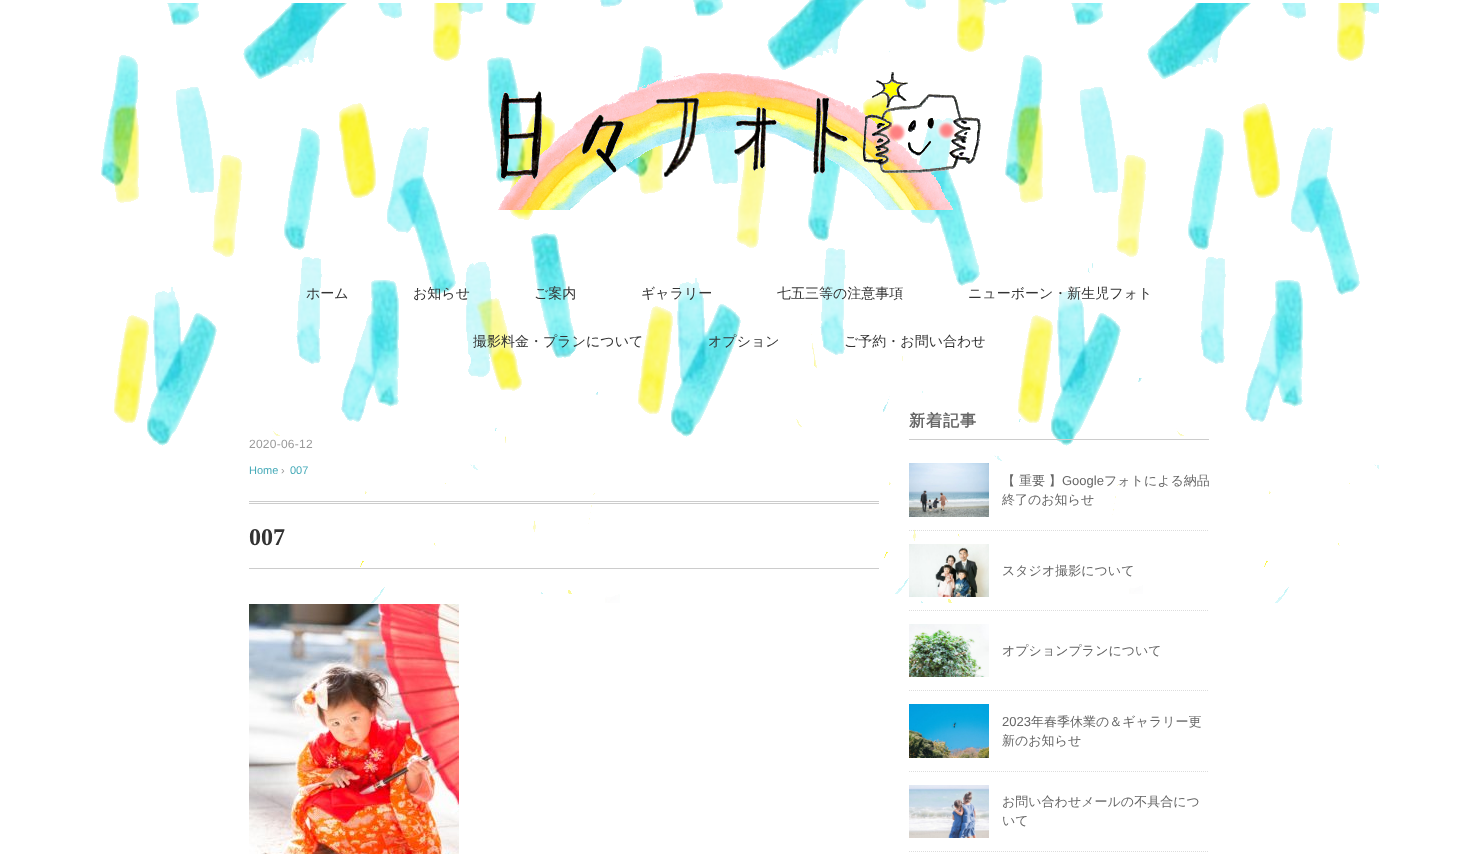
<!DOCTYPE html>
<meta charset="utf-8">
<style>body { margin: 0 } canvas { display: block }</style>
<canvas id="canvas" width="1458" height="854"></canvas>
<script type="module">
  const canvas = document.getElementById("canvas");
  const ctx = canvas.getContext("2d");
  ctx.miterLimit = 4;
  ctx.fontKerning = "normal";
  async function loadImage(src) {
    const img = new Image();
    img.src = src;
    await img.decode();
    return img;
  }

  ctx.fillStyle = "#ffffff";
  ctx.fillRect(0, 0, 1458, 854);
  ctx.drawImage(await loadImage("img1.png"), 101, 0, 1278, 603);
  ctx.drawImage(await loadImage("img2.png"), 498, 72, 483, 138);
  ctx.font = "500 14px WenQuanYi Zen Hei";
  ctx.fillStyle = "#333333";
  ctx.fillText("ホーム", 306, 298);
  ctx.fillText("お知らせ", 413, 298);
  ctx.fillText("ご案内", 534, 298);
  ctx.fillText("ギャラリー", 641, 298);
  ctx.fillText("七五三等の注意事項", 777, 298);
  ctx.fillText("ニューボーン・新生児フォト", 968, 298);
  ctx.fillText("撮影料金・プランについて", 473, 346);
  ctx.fillText("オプション", 708, 346);
  ctx.fillText("ご予約・お問い合わせ", 844, 346);
  ctx.letterSpacing = "0.25px";
  ctx.font = "12px Liberation Sans";
  ctx.fillStyle = "#999999";
  ctx.fillText("2020-06-12", 249, 448);
  ctx.letterSpacing = "0px";
  ctx.font = "11px Liberation Sans";
  ctx.fillStyle = "#45aab8";
  ctx.fillText("Home", 249, 474);
  ctx.fillStyle = "#999999";
  ctx.fillText("›", 281, 474);
  ctx.fillStyle = "#45aab8";
  ctx.fillText("007", 290, 474);
  ctx.fillStyle = "#cccccc";
  ctx.fillRect(249, 501, 630, 1);
  ctx.fillRect(249, 503, 630, 1);
  ctx.fillRect(249, 568, 630, 1);
  ctx.font = "bold 24px Liberation Serif";
  ctx.fillStyle = "#333333";
  ctx.fillText("007", 249, 545);
  ctx.drawImage(await loadImage("img3.png"), 249, 604, 210, 250);
  ctx.fillStyle = "#cccccc";
  ctx.fillRect(909, 439, 300, 1);
  ctx.letterSpacing = "1px";
  ctx.font = "bold 16px WenQuanYi Zen Hei";
  ctx.fillStyle = "#666666";
  ctx.fillText("新着記事", 909, 426);
  ctx.beginPath();
  ctx.moveTo(909, 530.5);
  ctx.lineTo(1209, 530.5);
  ctx.strokeStyle = "#dddddd";
  ctx.setLineDash([1, 1]);
  ctx.stroke();
  ctx.drawImage(await loadImage("img4.png"), 909, 463, 80, 54);
  ctx.letterSpacing = "0px";
  ctx.font = "500 13px WenQuanYi Zen Hei";
  ctx.fillText("【 重要 】", 1002, 485);
  ctx.font = "13px Liberation Sans";
  ctx.fillText("Google", 1062, 485);
  ctx.font = "500 13px WenQuanYi Zen Hei";
  ctx.fillText("フォトによる納品", 1104, 485);
  ctx.fillText("終了のお知らせ", 1002, 504);
  ctx.beginPath();
  ctx.moveTo(909, 610.5);
  ctx.lineTo(1209, 610.5);
  ctx.stroke();
  ctx.drawImage(await loadImage("img5.png"), 909, 544, 80, 53);
  ctx.fillText("スタジオ撮影について", 1002, 575);
  ctx.beginPath();
  ctx.moveTo(909, 690.5);
  ctx.lineTo(1209, 690.5);
  ctx.stroke();
  ctx.drawImage(await loadImage("img6.png"), 909, 624, 80, 53);
  ctx.fillText("オプションプランについて", 1002, 655);
  ctx.beginPath();
  ctx.moveTo(909, 771.5);
  ctx.lineTo(1209, 771.5);
  ctx.stroke();
  ctx.drawImage(await loadImage("img7.png"), 909, 704, 80, 54);
  ctx.font = "13px Liberation Sans";
  ctx.fillText("2023", 1002, 726);
  ctx.font = "500 13px WenQuanYi Zen Hei";
  ctx.fillText("年春季休業の＆ギャラリー更", 1031, 726);
  ctx.fillText("新のお知らせ", 1002, 745);
  ctx.beginPath();
  ctx.moveTo(909, 851.5);
  ctx.lineTo(1209, 851.5);
  ctx.stroke();
  ctx.drawImage(await loadImage("img8.png"), 909, 785, 80, 53);
  ctx.fillText("お問い合わせメールの不具合につ", 1002, 806);
  ctx.fillText("いて", 1002, 825);
</script>
